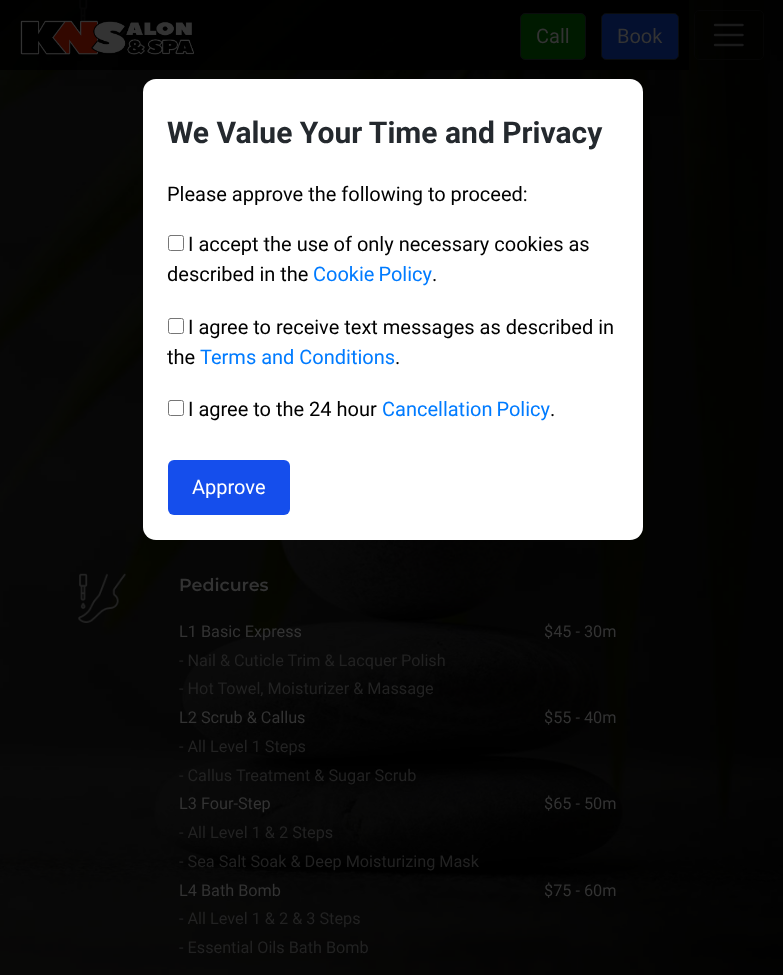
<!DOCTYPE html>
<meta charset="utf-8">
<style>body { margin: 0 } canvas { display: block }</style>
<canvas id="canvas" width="783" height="975"></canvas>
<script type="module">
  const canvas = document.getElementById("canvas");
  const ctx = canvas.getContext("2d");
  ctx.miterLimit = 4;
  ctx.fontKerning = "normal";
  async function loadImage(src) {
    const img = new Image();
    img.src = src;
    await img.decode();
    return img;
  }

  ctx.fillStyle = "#ffffff";
  ctx.fillRect(0, 0, 783, 975);
  ctx.drawImage(await loadImage("img2.png"), 0, 0, 783, 975);
  ctx.drawImage(await loadImage("img3.png"), 79, 0, 48, 36);
  ctx.fillStyle = "rgba(0, 0, 0, 0.85)";
  ctx.fillRect(0, 0, 689, 70);
  ctx.drawImage(await loadImage("img1.png"), 20, 20, 174, 35);
  ctx.fillStyle = "#001a00";
  ctx.beginPath();
  ctx.roundRect(520.5, 13.5, 65, 46, 4.5);
  ctx.fill();
  ctx.strokeStyle = "#0a0c0d";
  ctx.stroke();
  ctx.font = "20px Roboto";
  ctx.fillStyle = "#333333";
  ctx.fillText("Call", 536, 43);
  ctx.fillStyle = "#04102f";
  ctx.beginPath();
  ctx.roundRect(601.5, 13.5, 77, 46, 4.5);
  ctx.fill();
  ctx.stroke();
  ctx.fillStyle = "#333333";
  ctx.fillText("Book", 617, 43);
  ctx.beginPath();
  ctx.roundRect(694.5, 10.5, 69, 49, 4.5);
  ctx.strokeStyle = "#050505";
  ctx.stroke();
  ctx.beginPath();
  ctx.moveTo(715, 25);
  ctx.lineTo(742.5, 25);
  ctx.moveTo(715, 35);
  ctx.lineTo(742.5, 35);
  ctx.moveTo(715, 45);
  ctx.lineTo(742.5, 45);
  ctx.strokeStyle = "#1a1a1a";
  ctx.lineWidth = 2.5;
  ctx.lineCap = "round";
  ctx.stroke();
  ctx.fillStyle = "#ffffff";
  ctx.beginPath();
  ctx.roundRect(143, 79, 500, 461, 13);
  ctx.fill();
  ctx.font = "bold 30px Roboto";
  ctx.fillStyle = "#24292e";
  ctx.fillText("We Value Your Time and Privacy", 167, 143);
  ctx.font = "20px Roboto";
  ctx.fillStyle = "#000000";
  ctx.fillText("Please approve the following to proceed:", 167, 201);
  ctx.beginPath();
  ctx.roundRect(168.5, 235.5, 15, 15, 2);
  ctx.strokeStyle = "#767676";
  ctx.lineWidth = 1;
  ctx.stroke();
  ctx.fillText("I accept the use of only necessary cookies as", 188, 251);
  ctx.fillText("described in the", 167, 281);
  ctx.wordSpacing = "-1px";
  ctx.fillStyle = "#007bff";
  ctx.fillText("Cookie Policy", 313, 281);
  ctx.wordSpacing = "0px";
  ctx.fillStyle = "#000000";
  ctx.fillText(".", 432, 281);
  ctx.beginPath();
  ctx.roundRect(168.5, 318.5, 15, 15, 2);
  ctx.stroke();
  ctx.fillText("I agree to receive text messages as described in", 188, 334);
  ctx.fillText("the", 167, 364);
  ctx.fillStyle = "#007bff";
  ctx.fillText("Terms and Conditions", 200, 364);
  ctx.fillStyle = "#000000";
  ctx.fillText(".", 395, 364);
  ctx.beginPath();
  ctx.roundRect(168.5, 400.5, 15, 15, 2);
  ctx.stroke();
  ctx.fillText("I agree to the 24 hour", 188, 416);
  ctx.wordSpacing = "-1px";
  ctx.fillStyle = "#007bff";
  ctx.fillText("Cancellation Policy", 382, 416);
  ctx.wordSpacing = "0px";
  ctx.fillStyle = "#000000";
  ctx.fillText(".", 550, 416);
  ctx.fillStyle = "#154eec";
  ctx.beginPath();
  ctx.roundRect(168, 460, 122, 55, 6);
  ctx.fill();
  ctx.fillStyle = "#ffffff";
  ctx.fillText("Approve", 192, 494);
  ctx.drawImage(await loadImage("img4.png"), 78, 573, 48, 50);
  ctx.font = "600 17.5px Montserrat";
  ctx.fillStyle = "#333333";
  ctx.fillText("Pedicures", 179, 591);
  ctx.font = "16.25px Roboto";
  ctx.fillText("L1 Basic Express", 179, 637);
  ctx.fillText("$45 - 30m", 544, 637);
  ctx.fillStyle = "#222222";
  ctx.fillText("- Nail & Cuticle Trim & Lacquer Polish", 179, 666);
  ctx.fillText("- Hot Towel, Moisturizer & Massage", 179, 694);
  ctx.fillStyle = "#333333";
  ctx.fillText("L2 Scrub & Callus", 179, 723);
  ctx.fillText("$55 - 40m", 544, 723);
  ctx.fillStyle = "#222222";
  ctx.fillText("- All Level 1 Steps", 179, 752);
  ctx.fillText("- Callus Treatment & Sugar Scrub", 179, 781);
  ctx.fillStyle = "#333333";
  ctx.fillText("L3 Four-Step", 179, 809);
  ctx.fillText("$65 - 50m", 544, 809);
  ctx.fillStyle = "#222222";
  ctx.fillText("- All Level 1 & 2 Steps", 179, 838);
  ctx.fillText("- Sea Salt Soak & Deep Moisturizing Mask", 179, 867);
  ctx.fillStyle = "#333333";
  ctx.fillText("L4 Bath Bomb", 179, 896);
  ctx.fillText("$75 - 60m", 544, 896);
  ctx.fillStyle = "#222222";
  ctx.fillText("- All Level 1 & 2 & 3 Steps", 179, 924);
  ctx.fillText("- Essential Oils Bath Bomb", 179, 953);
</script>
